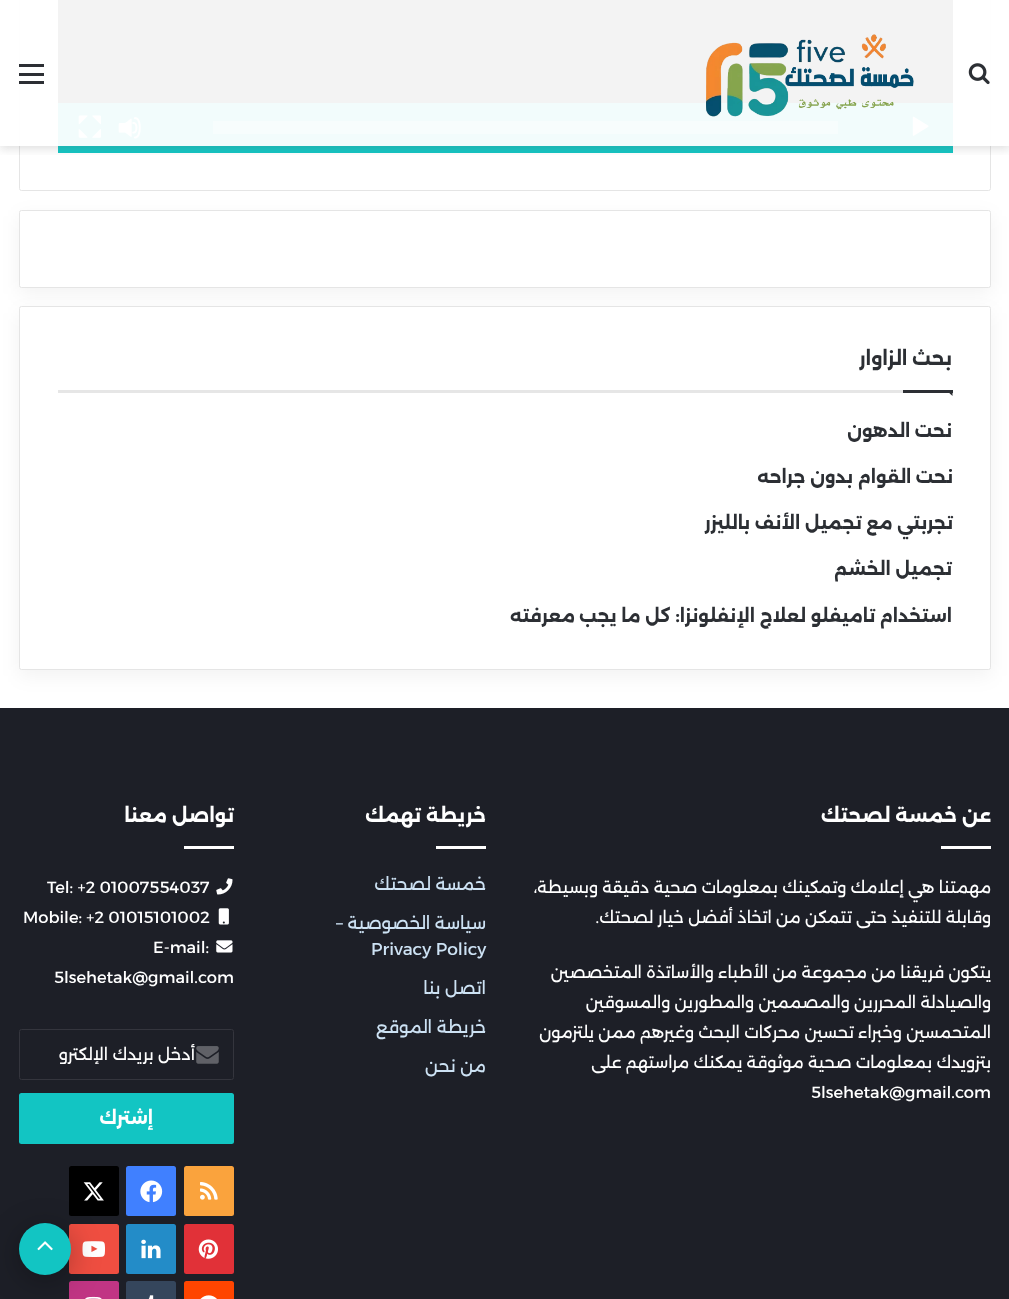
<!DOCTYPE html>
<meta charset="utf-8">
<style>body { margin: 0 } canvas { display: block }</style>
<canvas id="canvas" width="1009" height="1299"></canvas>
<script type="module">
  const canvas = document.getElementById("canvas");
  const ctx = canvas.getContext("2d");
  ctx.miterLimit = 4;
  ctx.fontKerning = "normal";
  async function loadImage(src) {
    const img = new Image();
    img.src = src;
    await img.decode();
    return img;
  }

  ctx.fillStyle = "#ffffff";
  ctx.fillRect(0, 0, 1009, 1299);
  ctx.beginPath();
  ctx.roundRect(19.5, -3.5, 971, 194, 2);
  ctx.strokeStyle = "#e5e5e5";
  ctx.stroke();
  ctx.fillStyle = "#222222";
  ctx.fillRect(58, 0, 895, 103);
  ctx.fillStyle = "#12c5c3";
  ctx.fillRect(58, 103, 895, 50);
  ctx.drawImage(await loadImage("img3.png"), 912, 116, 17, 20);
  ctx.fillStyle = "#60d8d7";
  ctx.fillRect(213, 121, 625, 13);
  ctx.drawImage(await loadImage("img4.png"), 118, 117, 23, 22);
  ctx.drawImage(await loadImage("img5.png"), 78, 115, 23, 23);
  ctx.save();
  ctx.beginPath();
  ctx.rect(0, 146, 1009, 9);
  ctx.clip();
  ctx.fillStyle = "rgba(99, 99, 99, 0.2)";
  ctx.filter = "blur(5px)";
  ctx.beginPath();
  ctx.rect(0, 3, 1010, 146);
  ctx.fill();
  ctx.filter = "none";
  ctx.restore();
  ctx.fillStyle = "rgba(255, 255, 255, 0.95)";
  ctx.fillRect(19, 0, 972, 146);
  ctx.drawImage(await loadImage("img1.png"), 968, 63, 22, 22);
  ctx.drawImage(await loadImage("img2.png"), 706, 34, 208, 83);
  ctx.fillStyle = "#2c2f34";
  ctx.fillRect(19, 73, 25, 3);
  ctx.fillRect(19, 64, 25, 3);
  ctx.fillRect(19, 81, 25, 3);
  ctx.fillStyle = "rgba(0, 0, 0, 0.05)";
  ctx.filter = "blur(9.5px)";
  ctx.beginPath();
  ctx.roundRect(19, 216, 972, 78, 2.5);
  ctx.fill();
  ctx.filter = "none";
  ctx.fillStyle = "#ffffff";
  ctx.beginPath();
  ctx.roundRect(19.5, 210.5, 971, 77, 2);
  ctx.fill();
  ctx.stroke();
  ctx.fillStyle = "rgba(0, 0, 0, 0.05)";
  ctx.filter = "blur(9.5px)";
  ctx.beginPath();
  ctx.roundRect(19, 313, 972, 363, 2.5);
  ctx.fill();
  ctx.filter = "none";
  ctx.fillStyle = "#ffffff";
  ctx.beginPath();
  ctx.roundRect(19.5, 306.5, 971, 363, 2);
  ctx.fill();
  ctx.stroke();
  ctx.fillStyle = "#e6e6e6";
  ctx.fillRect(58, 390, 845, 3);
  ctx.direction = "rtl";
  ctx.font = "bold 18.75px Alexandria";
  ctx.fillStyle = "#2c2f34";
  ctx.fillText("بحث الزاوار", 952, 365);
  ctx.beginPath();
  ctx.moveTo(946, 390);
  ctx.lineTo(952.5, 390);
  ctx.lineTo(952.5, 396);
  ctx.closePath();
  ctx.fill();
  ctx.fillRect(903, 390, 50, 3);
  ctx.font = "bold 17.5px Alexandria";
  ctx.fillText("نحت الدهون", 952, 437);
  ctx.fillText("نحت القوام بدون جراحه", 953, 483);
  ctx.fillText("تجربتي مع تجميل الأنف بالليزر", 953, 529);
  ctx.fillText("تجميل الخشم", 952, 575);
  ctx.fillText("استخدام تاميفلو لعلاج الإنفلونزا: كل ما يجب معرفته", 952, 622);
  ctx.fillStyle = "#1d1f27";
  ctx.fillRect(0, 708, 1009, 591);
  ctx.font = "bold 18.75px Alexandria";
  ctx.fillStyle = "#ffffff";
  ctx.fillText("عن خمسة لصحتك", 991, 822);
  ctx.fillRect(941, 846, 50, 3);
  ctx.font = "16.25px Alexandria";
  ctx.fillText("مهمتنا هي إعلامك وتمكينك بمعلومات صحية دقيقة وبسيطة،", 991, 893);
  ctx.fillText("وقابلة للتنفيذ حتى تتمكن من اتخاذ أفضل خيار لصحتك.", 991, 923);
  ctx.fillText("يتكون فريقنا من مجموعة من الأطباء والأساتذة المتخصصين", 991, 978);
  ctx.fillText("والصيادلة المحررين والمصممين والمطورين والمسوقين", 991, 1008);
  ctx.fillText("المتحمسين وخبراء تحسين محركات البحث وغيرهم ممن يلتزمون", 991, 1038);
  ctx.fillText("بتزويدك بمعلومات صحية موثوقة يمكنك مراستهم على", 991, 1068);
  ctx.direction = "ltr";
  ctx.fillText("5lsehetak@gmail.com", 811, 1098);
  ctx.direction = "rtl";
  ctx.font = "bold 18.75px Alexandria";
  ctx.fillText("خريطة تهمك", 486, 822);
  ctx.fillRect(436, 846, 50, 3);
  ctx.font = "17px Alexandria";
  ctx.fillStyle = "#cde2f4";
  ctx.fillText("خمسة لصحتك", 486, 890);
  ctx.fillText("سياسة الخصوصية –", 486, 929);
  ctx.direction = "ltr";
  ctx.fillText("Privacy Policy", 371, 955);
  ctx.direction = "rtl";
  ctx.fillText("اتصل بنا", 486, 994);
  ctx.fillText("خريطة الموقع", 486, 1033);
  ctx.fillText("من نحن", 486, 1072);
  ctx.font = "bold 18.75px Alexandria";
  ctx.fillStyle = "#ffffff";
  ctx.fillText("تواصل معنا", 234, 822);
  ctx.fillRect(184, 846, 50, 3);
  ctx.drawImage(await loadImage("img6.png"), 216, 878, 17, 17);
  ctx.direction = "ltr";
  ctx.font = "16.25px Alexandria";
  ctx.fillText("Tel: +2 01007554037", 47, 893);
  ctx.drawImage(await loadImage("img7.png"), 218, 908, 11, 17);
  ctx.fillText("Mobile: +2 01015101002", 23, 923);
  ctx.drawImage(await loadImage("img8.png"), 216, 940, 17, 13);
  ctx.fillText("E-mail:", 153, 953);
  ctx.fillText("5lsehetak@gmail.com", 54, 983);
  ctx.beginPath();
  ctx.roundRect(19.5, 1029.5, 214, 50, 2);
  ctx.strokeStyle = "#34353d";
  ctx.stroke();
  ctx.drawImage(await loadImage("img9.png"), 196, 1046, 23, 18);
  ctx.save();
  ctx.beginPath();
  ctx.rect(58, 1044, 137, 20);
  ctx.clip();
  ctx.direction = "rtl";
  ctx.fillText("أدخل بريدك الإلكتروني", 195, 1060);
  ctx.restore();
  ctx.fillStyle = "#12c5c3";
  ctx.beginPath();
  ctx.roundRect(19, 1093, 215, 51, 2.5);
  ctx.fill();
  ctx.direction = "rtl";
  ctx.font = "bold 17.5px Alexandria";
  ctx.fillStyle = "#ffffff";
  ctx.fillText("إشترك", 153, 1124);
  ctx.fillStyle = "#faa33d";
  ctx.beginPath();
  ctx.roundRect(184, 1166, 50, 50, 2.5);
  ctx.fill();
  ctx.drawImage(await loadImage("img10.png"), 200, 1182, 18, 18);
  ctx.fillStyle = "#4080ff";
  ctx.beginPath();
  ctx.roundRect(126, 1166, 50, 50, 2.5);
  ctx.fill();
  ctx.drawImage(await loadImage("img11.png"), 140, 1180, 23, 23);
  ctx.fillStyle = "#000000";
  ctx.beginPath();
  ctx.roundRect(69, 1166, 50, 50, 2.5);
  ctx.fill();
  ctx.drawImage(await loadImage("img12.png"), 83, 1182, 21, 19);
  ctx.fillStyle = "#e13138";
  ctx.beginPath();
  ctx.roundRect(184, 1224, 50, 50, 2.5);
  ctx.fill();
  ctx.drawImage(await loadImage("img13.png"), 198, 1239, 20, 20);
  ctx.fillStyle = "#238cc8";
  ctx.beginPath();
  ctx.roundRect(126, 1224, 50, 50, 2.5);
  ctx.fill();
  ctx.drawImage(await loadImage("img14.png"), 141, 1239, 20, 20);
  ctx.fillStyle = "#ef4e41";
  ctx.beginPath();
  ctx.roundRect(69, 1224, 50, 50, 2.5);
  ctx.fill();
  ctx.drawImage(await loadImage("img15.png"), 82, 1241, 23, 16);
  ctx.fillStyle = "#ff4500";
  ctx.beginPath();
  ctx.roundRect(184, 1281, 50, 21, 2.5);
  ctx.fill();
  ctx.drawImage(await loadImage("img16.png"), 200, 1295, 17, 4);
  ctx.fillStyle = "#35465c";
  ctx.beginPath();
  ctx.roundRect(126, 1281, 50, 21, 2.5);
  ctx.fill();
  ctx.drawImage(await loadImage("img17.png"), 148, 1295, 6, 4);
  ctx.fillStyle = "#c13584";
  ctx.beginPath();
  ctx.roundRect(69, 1281, 50, 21, 2.5);
  ctx.fill();
  ctx.drawImage(await loadImage("img18.png"), 85, 1296, 17, 3);
  ctx.fillStyle = "rgba(0, 0, 0, 0.3)";
  ctx.filter = "blur(15.5px)";
  ctx.beginPath();
  ctx.roundRect(19, 1229, 52, 52, 26);
  ctx.fill();
  ctx.filter = "none";
  ctx.fillStyle = "#12c5c3";
  ctx.beginPath();
  ctx.arc(45, 1249, 26, 0, Math.PI * 2);
  ctx.fill();
  ctx.drawImage(await loadImage("img19.png"), 37, 1241, 16, 10);
</script>
